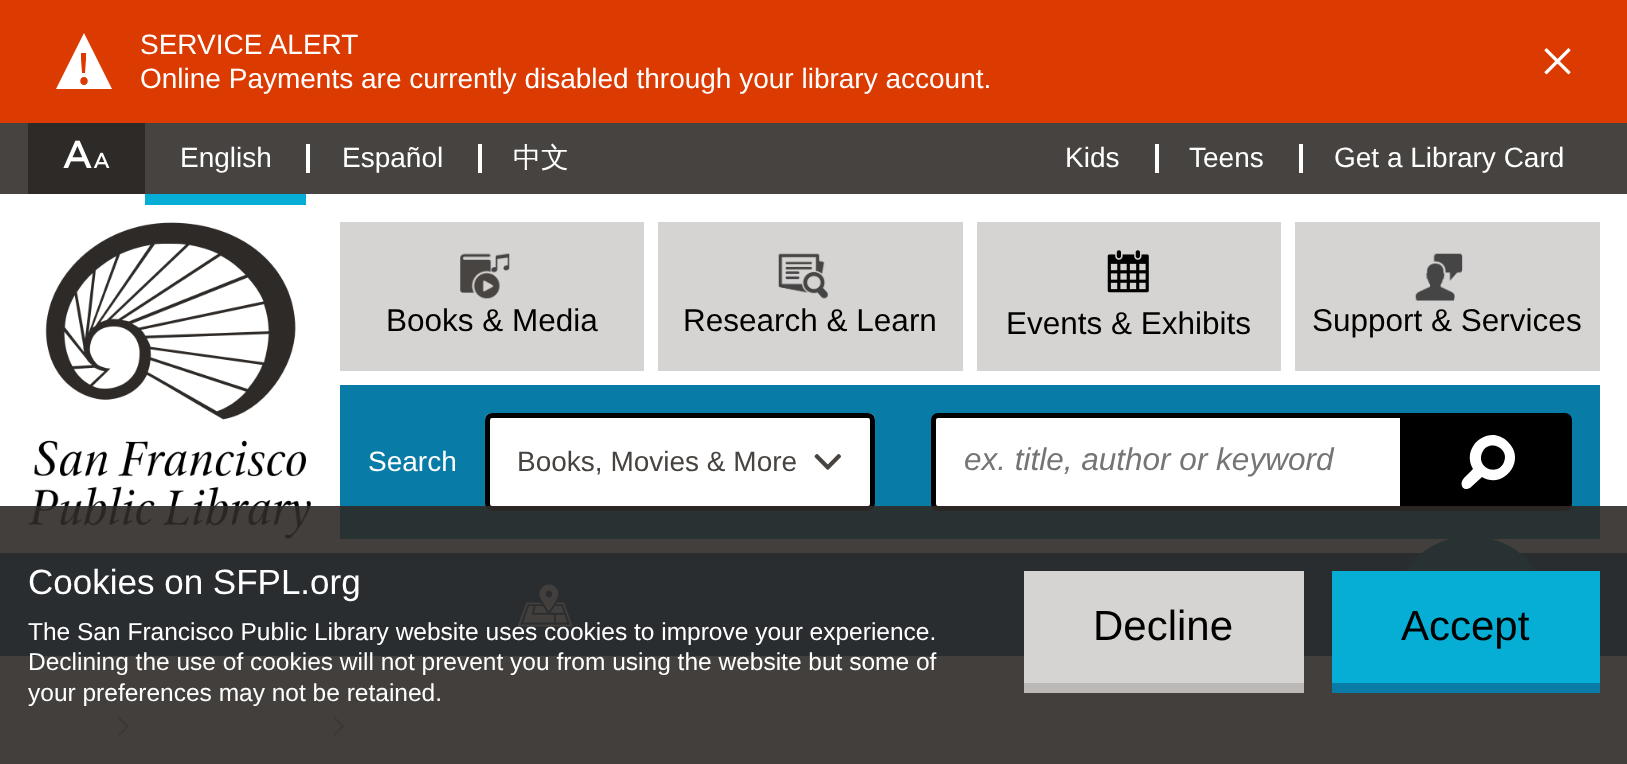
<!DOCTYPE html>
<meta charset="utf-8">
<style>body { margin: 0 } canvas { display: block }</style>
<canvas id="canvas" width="1627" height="764"></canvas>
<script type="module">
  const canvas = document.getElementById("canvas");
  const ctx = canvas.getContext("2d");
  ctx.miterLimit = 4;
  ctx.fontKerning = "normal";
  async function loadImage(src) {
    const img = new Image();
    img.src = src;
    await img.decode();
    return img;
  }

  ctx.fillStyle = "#ffffff";
  ctx.fillRect(0, 0, 1627, 764);
  ctx.drawImage(await loadImage("img1.png"), 0, 539, 1627, 225);
  ctx.fillStyle = "#db3a00";
  ctx.fillRect(0, 0, 1627, 123);
  ctx.fillStyle = "#ffffff";
  ctx.beginPath();
  ctx.moveTo(84, 33);
  ctx.lineTo(56, 89);
  ctx.lineTo(112, 89);
  ctx.closePath();
  ctx.moveTo(81, 53);
  ctx.lineTo(86, 53);
  ctx.lineTo(86, 59);
  ctx.lineTo(85, 73);
  ctx.lineTo(82, 73);
  ctx.lineTo(81, 59);
  ctx.closePath();
  ctx.moveTo(84, 85);
  ctx.bezierCurveTo(79, 85, 79, 77, 84, 77);
  ctx.bezierCurveTo(89, 77, 89, 85, 84, 85);
  ctx.closePath();
  ctx.fill();
  ctx.font = "28px Liberation Sans";
  ctx.fillText("SERVICE ALERT", 140, 54);
  ctx.fillText("Online Payments are currently disabled through your library account.", 140, 88);
  ctx.drawImage(await loadImage("img2.png"), 1544, 48, 27, 27);
  ctx.fillStyle = "#474340";
  ctx.fillRect(0, 123, 1627, 71);
  ctx.fillStyle = "#2e2a27";
  ctx.fillRect(28, 123, 117, 71);
  ctx.drawImage(await loadImage("img3.png"), 63, 140, 47, 28);
  ctx.fillStyle = "#06aed5";
  ctx.fillRect(145, 194, 161, 11);
  ctx.fillStyle = "#ffffff";
  ctx.fillText("English", 180, 167);
  ctx.fillRect(306, 144, 4, 29);
  ctx.fillText("Español", 342, 167);
  ctx.fillRect(478, 144, 4, 29);
  ctx.font = "500 28px WenQuanYi Zen Hei";
  ctx.fillText("中文", 513, 167);
  ctx.font = "28px Liberation Sans";
  ctx.fillText("Kids", 1065, 167);
  ctx.fillRect(1155, 144, 4, 29);
  ctx.fillText("Teens", 1189, 167);
  ctx.fillRect(1299, 144, 4, 29);
  ctx.fillText("Get a Library Card", 1334, 167);
  ctx.drawImage(await loadImage("img4.png"), 28, 222, 283, 317);
  ctx.fillStyle = "#d6d4d2";
  ctx.fillRect(340, 222, 304, 149);
  ctx.drawImage(await loadImage("img5.png"), 460, 253, 50, 46);
  ctx.font = "31.5px Liberation Sans";
  ctx.fillStyle = "#000000";
  ctx.fillText("Books & Media", 386, 331);
  ctx.fillStyle = "#d6d4d2";
  ctx.fillRect(658, 222, 305, 149);
  ctx.drawImage(await loadImage("img6.png"), 778, 253, 50, 46);
  ctx.fillStyle = "#000000";
  ctx.fillText("Research & Learn", 683, 331);
  ctx.fillStyle = "#d6d4d2";
  ctx.fillRect(977, 222, 304, 149);
  ctx.drawImage(await loadImage("img7.png"), 1107, 250, 42, 43);
  ctx.fillStyle = "#000000";
  ctx.fillText("Events & Exhibits", 1006, 334);
  ctx.fillStyle = "#d6d4d2";
  ctx.fillRect(1295, 222, 305, 149);
  ctx.drawImage(await loadImage("img8.png"), 1415, 253, 48, 48);
  ctx.fillStyle = "#000000";
  ctx.fillText("Support & Services", 1312, 331);
  ctx.fillStyle = "#087ca7";
  ctx.fillRect(340, 385, 1260, 154);
  ctx.font = "28px Liberation Sans";
  ctx.fillStyle = "#ffffff";
  ctx.fillText("Search", 368, 471);
  ctx.beginPath();
  ctx.roundRect(485, 413, 390, 98, 7);
  ctx.fill();
  ctx.drawImage(await loadImage("img9.png"), 814, 454, 27, 16);
  ctx.beginPath();
  ctx.roundRect(487.5, 415.5, 385, 93, 4.5);
  ctx.strokeStyle = "#000000";
  ctx.lineWidth = 5;
  ctx.stroke();
  ctx.fillStyle = "#474340";
  ctx.fillText("Books, Movies & More", 517, 471);
  ctx.fillStyle = "#ffffff";
  ctx.beginPath();
  ctx.roundRect(933.5, 415.5, 469, 93, [4.5, 0, 0, 4.5]);
  ctx.fill();
  ctx.stroke();
  ctx.font = "italic 31.5px Liberation Sans";
  ctx.fillStyle = "#757575";
  ctx.fillText("ex. title, author or keyword", 964, 470);
  ctx.fillStyle = "#000000";
  ctx.beginPath();
  ctx.roundRect(1405, 413, 167, 98, [0, 7, 7, 0]);
  ctx.fill();
  ctx.fillStyle = "#ffffff";
  ctx.beginPath();
  ctx.moveTo(1508, 442);
  ctx.bezierCurveTo(1527, 460, 1504, 490, 1482, 477);
  ctx.lineTo(1470, 488);
  ctx.bezierCurveTo(1468, 489, 1466, 489, 1465, 489);
  ctx.bezierCurveTo(1463, 488, 1462, 487, 1462, 486);
  ctx.bezierCurveTo(1460, 481, 1465, 477, 1468, 474);
  ctx.lineTo(1473, 469);
  ctx.bezierCurveTo(1460, 446, 1490, 423, 1508, 442);
  ctx.closePath();
  ctx.moveTo(1482, 453);
  ctx.bezierCurveTo(1476, 468, 1498, 477, 1504, 462);
  ctx.bezierCurveTo(1510, 448, 1488, 438, 1482, 453);
  ctx.closePath();
  ctx.fill();
  ctx.fillStyle = "#0f4880";
  ctx.fillRect(0, 553, 1627, 103);
  ctx.fillStyle = "#087ca7";
  ctx.beginPath();
  ctx.moveTo(1471, 536);
  ctx.bezierCurveTo(1433, 536, 1396, 564, 1398, 604);
  ctx.bezierCurveTo(1398, 615, 1402, 627, 1409, 637);
  ctx.lineTo(1406, 665);
  ctx.bezierCurveTo(1406, 666, 1404, 675, 1409, 673);
  ctx.lineTo(1438, 660);
  ctx.bezierCurveTo(1454, 667, 1472, 669, 1490, 665);
  ctx.bezierCurveTo(1504, 661, 1518, 653, 1528, 641);
  ctx.bezierCurveTo(1538, 630, 1543, 616, 1543, 601);
  ctx.bezierCurveTo(1544, 562, 1507, 536, 1471, 536);
  ctx.closePath();
  ctx.fill();
  ctx.drawImage(await loadImage("img10.png"), 118, 716, 12, 20);
  ctx.drawImage(await loadImage("img11.png"), 333, 716, 12, 20);
  ctx.drawImage(await loadImage("img12.png"), 518, 584, 55, 43);
  ctx.fillStyle = "rgba(46, 42, 39, 0.9)";
  ctx.fillRect(0, 506, 1627, 258);
  ctx.font = "35px Liberation Sans";
  ctx.fillStyle = "#ffffff";
  ctx.fillText("Cookies on SFPL.org", 28, 594);
  ctx.font = "24.5px Liberation Sans";
  ctx.fillText("The San Francisco Public Library website uses cookies to improve your experience.", 28, 640);
  ctx.fillText("Declining the use of cookies will not prevent you from using the website but some of", 28, 670);
  ctx.fillText("your preferences may not be retained.", 28, 701);
  ctx.fillStyle = "#bbb8b5";
  ctx.beginPath();
  ctx.moveTo(1024, 682);
  ctx.lineTo(1024, 693);
  ctx.lineTo(1304, 693);
  ctx.lineTo(1304, 581);
  ctx.lineTo(1304, 682);
  ctx.closePath();
  ctx.fill();
  ctx.fillStyle = "#d6d4d2";
  ctx.fillRect(1024, 571, 280, 112);
  ctx.font = "42px Liberation Sans";
  ctx.fillStyle = "#000000";
  ctx.fillText("Decline", 1093, 640);
  ctx.fillStyle = "#087ca7";
  ctx.beginPath();
  ctx.moveTo(1332, 682);
  ctx.lineTo(1332, 693);
  ctx.lineTo(1600, 693);
  ctx.lineTo(1600, 581);
  ctx.lineTo(1600, 682);
  ctx.closePath();
  ctx.fill();
  ctx.fillStyle = "#06aed5";
  ctx.fillRect(1332, 571, 268, 112);
  ctx.fillStyle = "#000000";
  ctx.fillText("Accept", 1401, 640);
</script>
